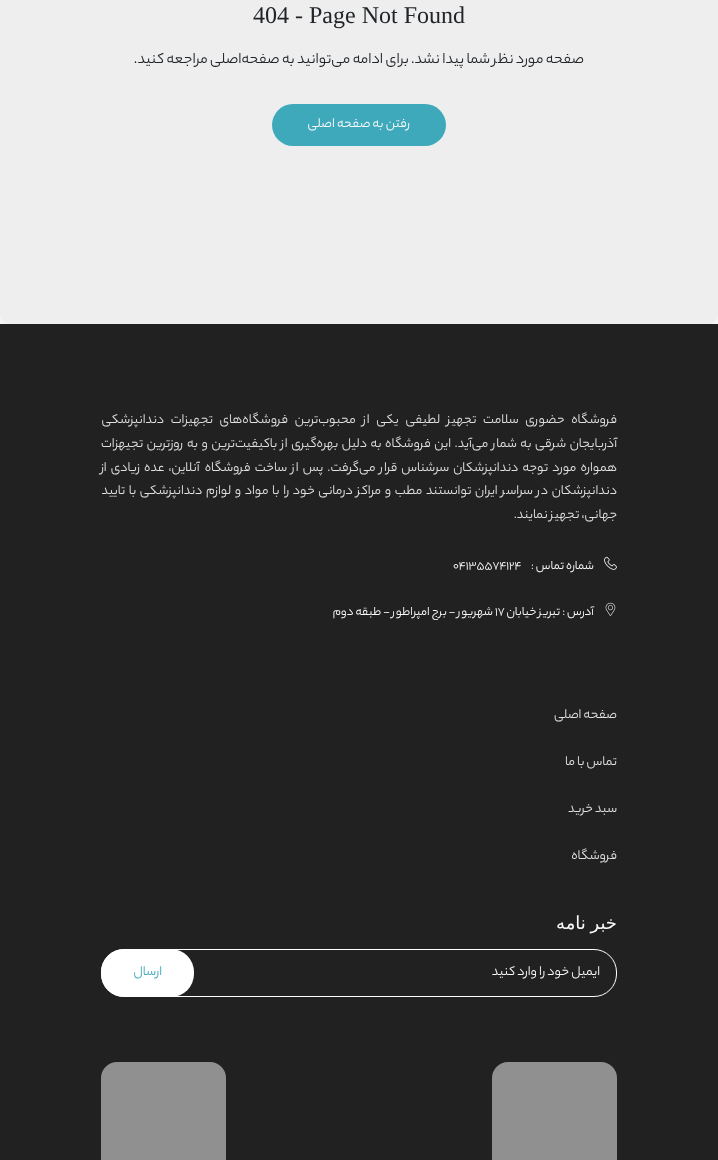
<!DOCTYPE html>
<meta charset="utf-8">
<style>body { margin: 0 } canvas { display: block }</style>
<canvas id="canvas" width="718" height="1160"></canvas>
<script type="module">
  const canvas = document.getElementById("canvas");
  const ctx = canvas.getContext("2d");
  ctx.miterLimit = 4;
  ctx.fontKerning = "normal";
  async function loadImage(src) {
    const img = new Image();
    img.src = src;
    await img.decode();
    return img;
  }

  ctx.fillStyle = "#f5f5f5";
  ctx.fillRect(0, 0, 718, 1160);
  ctx.fillStyle = "#eeeeee";
  ctx.beginPath();
  ctx.roundRect(0, -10, 718, 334, 10);
  ctx.fill();
  ctx.font = "24px Liberation Serif";
  ctx.fillStyle = "#212529";
  ctx.fillText("404 - Page Not Found", 253, 23);
  ctx.direction = "rtl";
  ctx.font = "16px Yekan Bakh";
  ctx.fillText("صفحه مورد نظر شما پیدا نشد. برای ادامه می‌توانید به صفحه‌اصلی مراجعه کنید.", 584, 63);
  ctx.fillStyle = "#3da9bb";
  ctx.beginPath();
  ctx.roundRect(272, 104, 174, 42, 21);
  ctx.fill();
  ctx.font = "14px Yekan Bakh";
  ctx.fillStyle = "#fafafa";
  ctx.fillText("رفتن به صفحه اصلی", 410, 127);
  ctx.fillStyle = "#212121";
  ctx.fillRect(0, 324, 718, 836);
  ctx.wordSpacing = "4.5px";
  ctx.fillStyle = "#e0e0e0";
  ctx.fillText("فروشگاه حضوری سلامت تجهیز لطیفی یکی از محبوب‌ترین فروشگاه‌های تجهیزات دندانپزشکی", 617, 423);
  ctx.wordSpacing = "1.4px";
  ctx.fillText("آذربایجان شرقی به شمار می‌آید. این فروشگاه به دلیل بهره‌گیری از باکیفیت‌ترین و به روزترین تجیهزات", 617, 447);
  ctx.wordSpacing = "2px";
  ctx.fillText("همواره مورد توجه دندانپزشکان سرشناس قرار می‌گرفت. پس از ساخت فروشگاه آنلاین، عده زیادی از", 617, 471);
  ctx.wordSpacing = "1.5px";
  ctx.fillText("دندانپزشکان در سراسر ایران توانستند مطب و مراکز درمانی خود را با مواد و لوازم دندانپزشکی با تایید", 617, 494);
  ctx.wordSpacing = "0px";
  ctx.fillText("جهانی، تجهیز نمایند.", 617, 518);
  ctx.drawImage(await loadImage("img1.png"), 604, 556, 13, 14);
  ctx.font = "13px Yekan Bakh";
  ctx.fillStyle = "#fafafa";
  ctx.fillText("شماره تماس :", 594, 569);
  ctx.direction = "ltr";
  ctx.fillText("۰۴۱۳۵۵۷۴۱۲۴", 453, 569);
  ctx.drawImage(await loadImage("img2.png"), 605, 602, 11, 14);
  ctx.direction = "rtl";
  ctx.fillText("آدرس : تبریز خیابان", 594, 615);
  ctx.direction = "ltr";
  ctx.fillText("۱۷", 495, 615);
  ctx.direction = "rtl";
  ctx.fillText("شهریور - برج امپراطور - طبقه دوم", 493, 615);
  ctx.font = "14px Yekan Bakh";
  ctx.fillStyle = "#e0e0e0";
  ctx.fillText("صفحه اصلی", 617, 718);
  ctx.fillText("تماس با ما", 617, 765);
  ctx.fillText("سبد خرید", 617, 812);
  ctx.fillText("فروشگاه", 617, 859);
  ctx.wordSpacing = "-1px";
  ctx.font = "18px DejaVu Sans";
  ctx.fillStyle = "#fafafa";
  ctx.fillText("خبر نامه", 617, 929);
  ctx.beginPath();
  ctx.roundRect(101.5, 949.5, 515, 47, 22.5);
  ctx.strokeStyle = "#ffffff";
  ctx.stroke();
  ctx.wordSpacing = "0px";
  ctx.font = "14px Yekan Bakh";
  ctx.fillText("ایمیل خود را وارد کنید", 600, 975);
  ctx.fillStyle = "#ffffff";
  ctx.beginPath();
  ctx.roundRect(101, 949, 93, 48, 23);
  ctx.fill();
  ctx.fillStyle = "#3da9bb";
  ctx.fillText("ارسال", 162, 975);
  ctx.fillStyle = "#909090";
  ctx.beginPath();
  ctx.roundRect(492, 1062, 125, 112, 16);
  ctx.fill();
  ctx.beginPath();
  ctx.roundRect(101, 1062, 125, 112, 16);
  ctx.fill();
</script>
